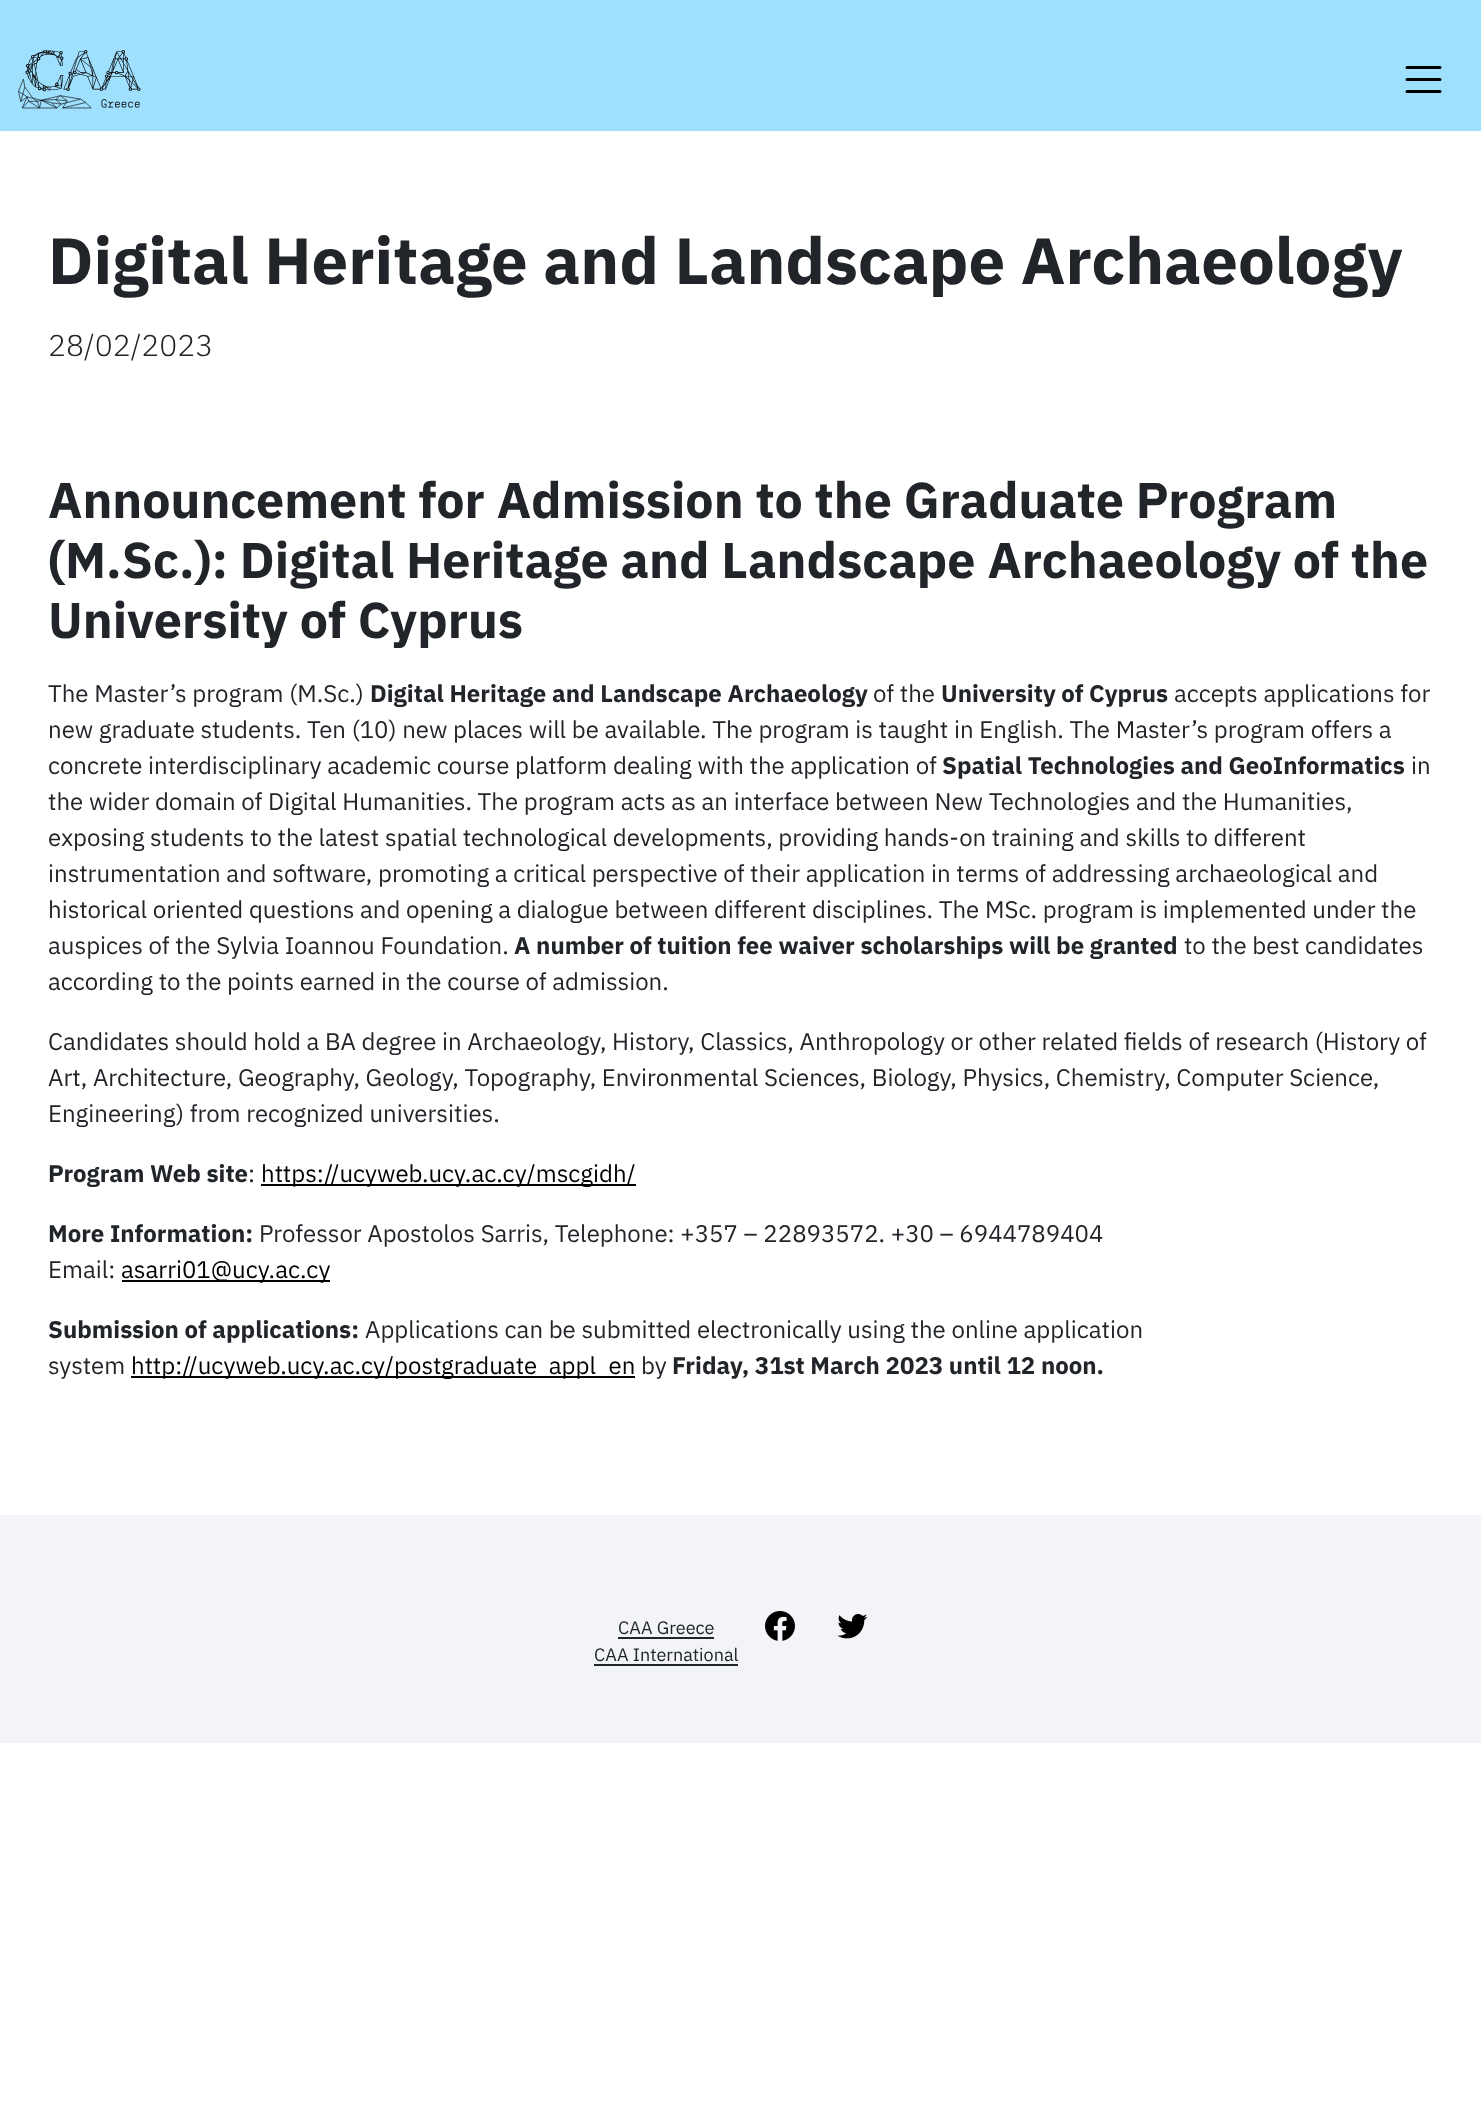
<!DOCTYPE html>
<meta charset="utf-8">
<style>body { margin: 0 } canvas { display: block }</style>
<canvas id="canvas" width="1481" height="2111"></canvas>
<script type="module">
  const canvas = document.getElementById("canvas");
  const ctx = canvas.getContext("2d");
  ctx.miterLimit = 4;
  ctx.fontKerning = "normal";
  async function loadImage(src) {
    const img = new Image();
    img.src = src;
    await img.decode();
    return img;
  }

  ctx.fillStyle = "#ffffff";
  ctx.fillRect(0, 0, 1481, 2111);
  ctx.fillStyle = "#9fe0ff";
  ctx.fillRect(0, 0, 1481, 131);
  ctx.drawImage(await loadImage("img1.png"), 18, 50, 123, 59);
  ctx.beginPath();
  ctx.moveTo(1407, 67.5);
  ctx.lineTo(1440, 67.5);
  ctx.moveTo(1407, 79.5);
  ctx.lineTo(1440, 79.5);
  ctx.moveTo(1407, 91.5);
  ctx.lineTo(1440, 91.5);
  ctx.strokeStyle = "#000000";
  ctx.lineWidth = 3;
  ctx.lineCap = "round";
  ctx.stroke();
  ctx.font = "bold 65.3px IBM Plex Sans";
  ctx.fillStyle = "#212529";
  ctx.fillText("Digital Heritage and Landscape Archaeology", 48, 284);
  ctx.font = "300 30px IBM Plex Sans";
  ctx.fillText("28/02/2023", 48, 356);
  ctx.font = "bold 50.2px IBM Plex Sans";
  ctx.fillText("Announcement for Admission to the Graduate Program", 48, 518);
  ctx.fillText("(M.Sc.): Digital Heritage and Landscape Archaeology of the", 48, 578);
  ctx.fillText("University of Cyprus", 48, 638);
  ctx.font = "24px IBM Plex Sans";
  ctx.fillText("The Master’s program (M.Sc.)", 48, 702);
  ctx.font = "bold 24px IBM Plex Sans";
  ctx.fillText("Digital Heritage and Landscape Archaeology", 370, 702);
  ctx.font = "24px IBM Plex Sans";
  ctx.fillText("of the", 873, 702);
  ctx.font = "bold 24px IBM Plex Sans";
  ctx.fillText("University of Cyprus", 941, 702);
  ctx.font = "24px IBM Plex Sans";
  ctx.fillText("accepts applications for", 1174, 702);
  ctx.fillText("new graduate students. Ten (10) new places will be available. The program is taught in English. The Master’s program offers a", 48, 738);
  ctx.fillText("concrete interdisciplinary academic course platform dealing with the application of", 48, 774);
  ctx.font = "bold 24px IBM Plex Sans";
  ctx.fillText("Spatial Technologies and GeoInformatics", 942, 774);
  ctx.font = "24px IBM Plex Sans";
  ctx.fillText("in", 1411, 774);
  ctx.fillText("the wider domain of Digital Humanities. The program acts as an interface between New Technologies and the Humanities,", 48, 810);
  ctx.fillText("exposing students to the latest spatial technological developments, providing hands-on training and skills to different", 48, 846);
  ctx.fillText("instrumentation and software, promoting a critical perspective of their application in terms of addressing archaeological and", 48, 882);
  ctx.fillText("historical oriented questions and opening a dialogue between different disciplines. The MSc. program is implemented under the", 48, 918);
  ctx.fillText("auspices of the Sylvia Ioannou Foundation.", 48, 954);
  ctx.font = "bold 24px IBM Plex Sans";
  ctx.fillText("A number of tuition fee waiver scholarships will be granted", 514, 954);
  ctx.font = "24px IBM Plex Sans";
  ctx.fillText("to the best candidates", 1184, 954);
  ctx.fillText("according to the points earned in the course of admission.", 48, 990);
  ctx.fillText("Candidates should hold a BA degree in Archaeology, History, Classics, Anthropology or other related fields of research (History of", 48, 1050);
  ctx.fillText("Art, Architecture, Geography, Geology, Topography, Environmental Sciences, Biology, Physics, Chemistry, Computer Science,", 48, 1086);
  ctx.fillText("Engineering) from recognized universities.", 48, 1122);
  ctx.font = "bold 24px IBM Plex Sans";
  ctx.fillText("Program Web site", 48, 1182);
  ctx.font = "24px IBM Plex Sans";
  ctx.fillText(":", 248, 1182);
  ctx.fillStyle = "#000000";
  ctx.fillRect(261, 1184, 375, 2);
  ctx.fillText("https://ucyweb.ucy.ac.cy/mscgidh/", 261, 1182);
  ctx.font = "bold 24px IBM Plex Sans";
  ctx.fillStyle = "#212529";
  ctx.fillText("More Information:", 48, 1242);
  ctx.font = "24px IBM Plex Sans";
  ctx.fillText("Professor Apostolos Sarris, Telephone: +357 – 22893572. +30 – 6944789404", 259, 1242);
  ctx.fillText("Email:", 48, 1278);
  ctx.fillStyle = "#000000";
  ctx.fillRect(122, 1280, 208, 2);
  ctx.fillText("asarri01@ucy.ac.cy", 121, 1278);
  ctx.font = "bold 24px IBM Plex Sans";
  ctx.fillStyle = "#212529";
  ctx.fillText("Submission of applications:", 48, 1338);
  ctx.font = "24px IBM Plex Sans";
  ctx.fillText("Applications can be submitted electronically using the online application", 365, 1338);
  ctx.fillText("system", 48, 1374);
  ctx.fillStyle = "#000000";
  ctx.fillRect(131, 1376, 504, 2);
  ctx.fillText("http://ucyweb.ucy.ac.cy/postgraduate_appl_en", 131, 1374);
  ctx.fillStyle = "#212529";
  ctx.fillText("by", 641, 1374);
  ctx.font = "bold 24px IBM Plex Sans";
  ctx.fillText("Friday, 31st March 2023 until 12 noon.", 672, 1374);
  ctx.fillStyle = "#f3f4f8";
  ctx.fillRect(0, 1515, 1481, 228);
  ctx.font = "18px IBM Plex Sans";
  ctx.fillStyle = "#212529";
  ctx.fillText("CAA Greece", 618, 1634);
  ctx.fillRect(618, 1637, 96, 2);
  ctx.fillText("CAA International", 594, 1661);
  ctx.fillRect(594, 1664, 144, 2);
  ctx.drawImage(await loadImage("img2.png"), 765, 1611, 30, 30);
  ctx.drawImage(await loadImage("img3.png"), 837, 1614, 31, 25);
</script>
